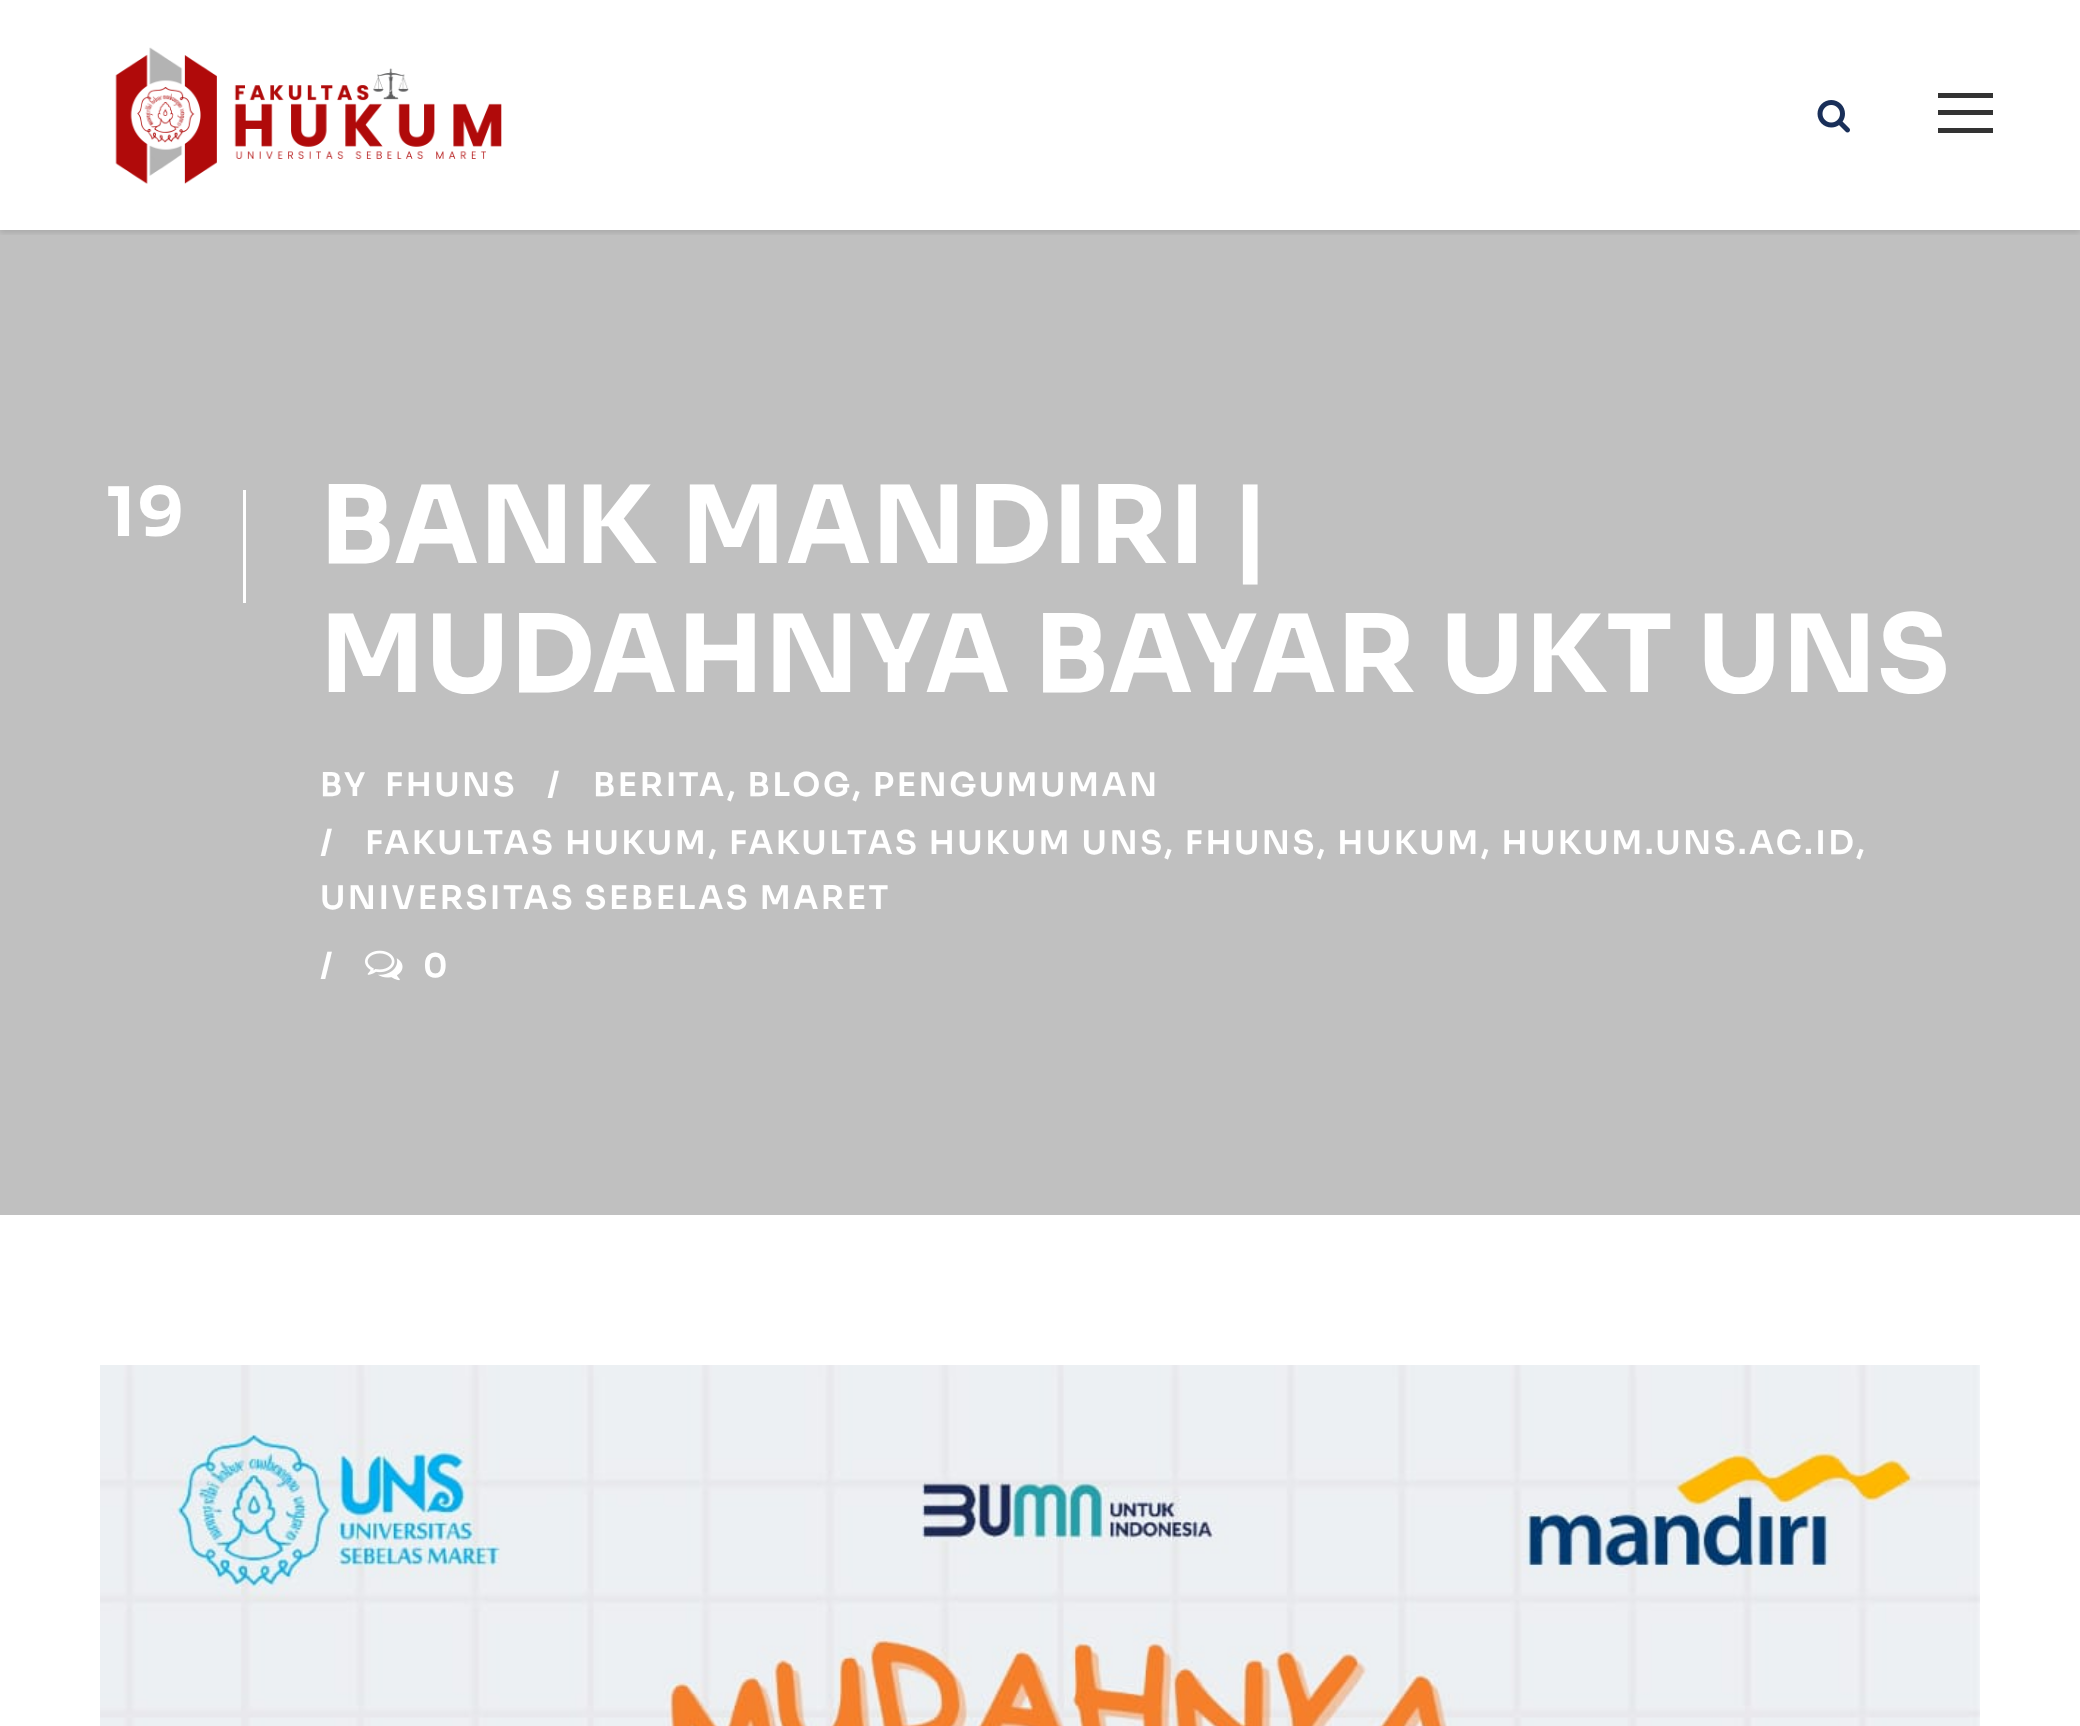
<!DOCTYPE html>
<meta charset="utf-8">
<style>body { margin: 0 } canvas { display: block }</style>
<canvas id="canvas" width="2080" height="1726"></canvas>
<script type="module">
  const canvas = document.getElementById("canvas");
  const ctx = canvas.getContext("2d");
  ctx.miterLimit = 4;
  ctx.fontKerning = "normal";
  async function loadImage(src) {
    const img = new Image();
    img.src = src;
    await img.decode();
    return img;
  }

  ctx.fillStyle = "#ffffff";
  ctx.fillRect(0, 0, 2080, 1726);
  ctx.fillStyle = "#c0c0c0";
  ctx.fillRect(0, 230, 2080, 985);
  ctx.save();
  ctx.beginPath();
  ctx.rect(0, 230, 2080, 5);
  ctx.clip();
  ctx.fillStyle = "rgba(0, 0, 0, 0.1)";
  ctx.filter = "blur(2.5px)";
  ctx.beginPath();
  ctx.rect(0, 3, 2080, 230);
  ctx.fill();
  ctx.filter = "none";
  ctx.restore();
  ctx.drawImage(await loadImage("img1.png"), 115, 47, 387, 137);
  ctx.drawImage(await loadImage("img2.png"), 1817, 100, 33, 33);
  ctx.fillStyle = "#333333";
  ctx.fillRect(1938, 93, 55, 5);
  ctx.fillRect(1938, 110, 55, 5);
  ctx.fillRect(1938, 128, 55, 5);
  ctx.fillStyle = "#ffffff";
  ctx.fillRect(243, 490, 3, 113);
  ctx.letterSpacing = "2.5px";
  ctx.font = "bold 68px Sora";
  ctx.fillText("19", 106, 536);
  ctx.letterSpacing = "1.25px";
  ctx.font = "bold 107.5px Sora";
  ctx.fillText("BANK MANDIRI |", 320, 563);
  ctx.fillText("MUDAHNYA BAYAR UKT UNS", 320, 692);
  ctx.letterSpacing = "2.5px";
  ctx.font = "600 32.5px Sora";
  ctx.fillText("BY", 320, 796);
  ctx.fillText("FHUNS", 385, 796);
  ctx.fillText("/", 547, 796);
  ctx.fillText("BERITA, BLOG", 593, 796);
  ctx.fillText(", PENGUMUMAN", 852, 796);
  ctx.fillText("/", 320, 854);
  ctx.fillText("FAKULTAS HUKUM, FAKULTAS HUKUM UNS", 365, 854);
  ctx.fillText(", FHUNS, HUKUM, HUKUM.UNS.AC.ID", 1164, 854);
  ctx.fillText(",", 1856, 854);
  ctx.fillText("UNIVERSITAS SEBELAS MARET", 320, 909);
  ctx.fillText("/", 320, 977);
  ctx.drawImage(await loadImage("img3.png"), 365, 950, 38, 31);
  ctx.fillText("0", 423, 977);
  ctx.drawImage(await loadImage("img4.png"), 100, 1365, 1880, 361);
</script>
